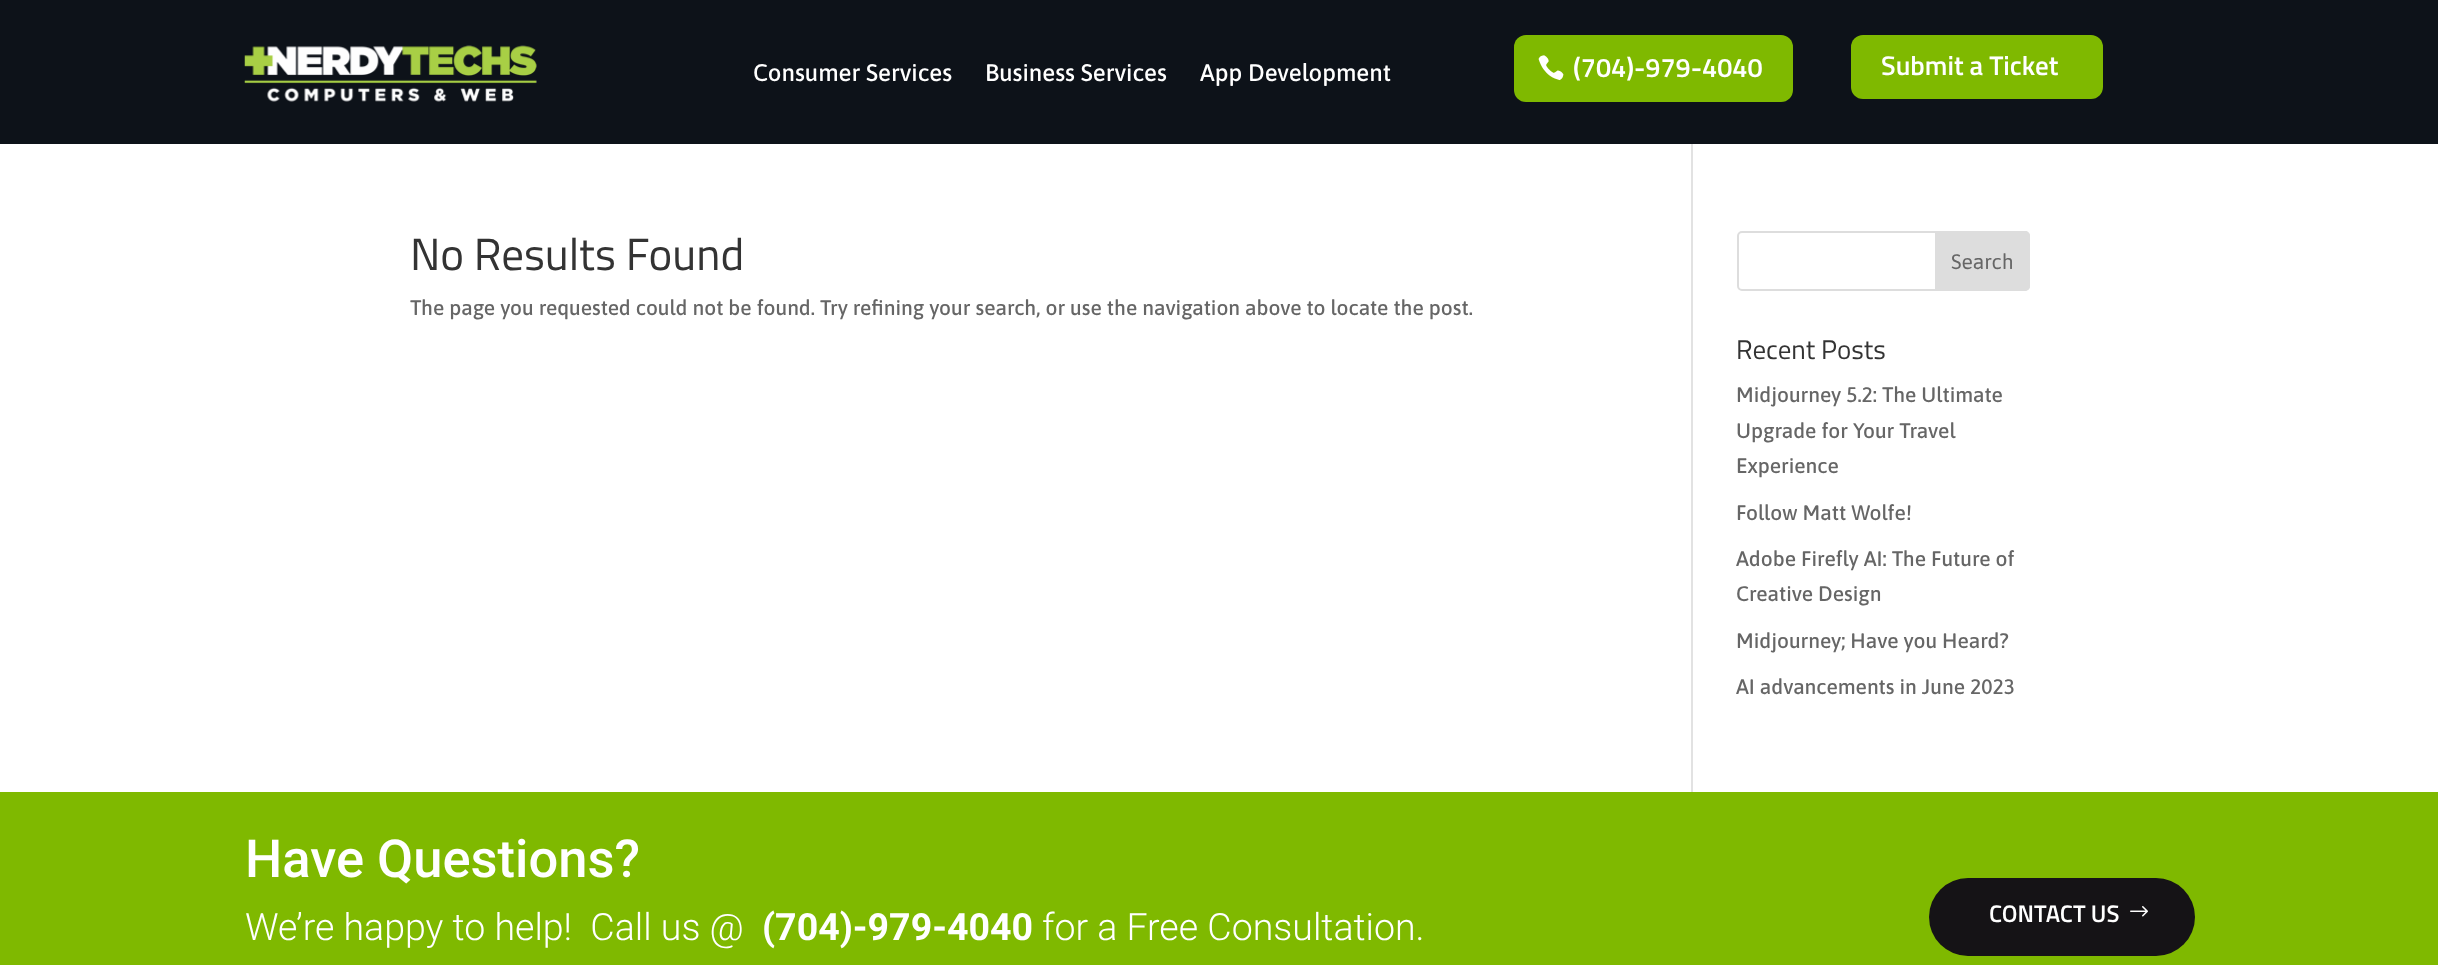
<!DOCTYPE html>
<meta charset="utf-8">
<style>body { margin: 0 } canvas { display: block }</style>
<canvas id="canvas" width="2438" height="965"></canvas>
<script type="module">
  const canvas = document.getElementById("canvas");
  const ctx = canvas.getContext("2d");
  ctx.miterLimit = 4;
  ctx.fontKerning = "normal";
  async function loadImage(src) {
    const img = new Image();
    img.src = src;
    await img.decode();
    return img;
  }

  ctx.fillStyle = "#0d1219";
  ctx.fillRect(0, 0, 2438, 965);
  ctx.drawImage(await loadImage("img1.png"), 244, 45, 293, 57);
  ctx.font = "500 24px Asap";
  ctx.fillStyle = "#ffffff";
  ctx.fillText("Consumer Services", 753, 81);
  ctx.fillText("Business Services", 985, 81);
  ctx.fillText("App Development", 1200, 81);
  ctx.fillStyle = "#7fb900";
  ctx.beginPath();
  ctx.roundRect(1514, 35, 279, 67, 12);
  ctx.fill();
  ctx.drawImage(await loadImage("img2.png"), 1538, 55, 26, 26);
  ctx.font = "600 27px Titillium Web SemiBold";
  ctx.fillStyle = "#ffffff";
  ctx.fillText("(704)-979-4040", 1573, 77);
  ctx.fillStyle = "#7fb900";
  ctx.beginPath();
  ctx.roundRect(1851, 35, 252, 64, 12);
  ctx.fill();
  ctx.fillStyle = "#ffffff";
  ctx.fillText("Submit a Ticket", 1881, 75);
  ctx.fillRect(0, 144, 2438, 648);
  ctx.fillStyle = "#e2e2e2";
  ctx.fillRect(1691, 144, 2, 648);
  ctx.font = "45px Titillium Web";
  ctx.fillStyle = "#333333";
  ctx.fillText("No Results Found", 410, 270);
  ctx.font = "500 21px Asap";
  ctx.fillStyle = "#666666";
  ctx.fillText("The page you requested could not be found. Try refining your search, or use the navigation above to locate the post.", 410, 315);
  ctx.beginPath();
  ctx.roundRect(1738, 232, 291, 58, 4);
  ctx.strokeStyle = "#dddddd";
  ctx.lineWidth = 2;
  ctx.stroke();
  ctx.fillStyle = "#dddddd";
  ctx.beginPath();
  ctx.roundRect(1936, 232, 93, 58, [0, 4, 4, 0]);
  ctx.fill();
  ctx.stroke();
  ctx.font = "21px Asap";
  ctx.fillStyle = "#666666";
  ctx.fillText("Search", 1951, 269);
  ctx.font = "27px Titillium Web";
  ctx.fillStyle = "#333333";
  ctx.fillText("Recent Posts", 1736, 359);
  ctx.font = "500 21px Asap";
  ctx.fillStyle = "#666666";
  ctx.fillText("Midjourney 5.2: The Ultimate", 1736, 402);
  ctx.fillText("Upgrade for Your Travel", 1736, 438);
  ctx.fillText("Experience", 1736, 473);
  ctx.fillText("Follow Matt Wolfe!", 1736, 520);
  ctx.fillText("Adobe Firefly AI: The Future of", 1736, 566);
  ctx.fillText("Creative Design", 1736, 601);
  ctx.fillText("Midjourney; Have you Heard?", 1736, 648);
  ctx.fillText("AI advancements in June 2023", 1736, 694);
  ctx.fillStyle = "#7fb900";
  ctx.fillRect(0, 792, 2438, 173);
  ctx.font = "500 52.5px Roboto";
  ctx.fillStyle = "#ffffff";
  ctx.fillText("Have Questions?", 245, 877);
  ctx.font = "300 37.5px Roboto";
  ctx.fillText("We’re happy to help!  Call us @", 245, 940);
  ctx.font = "bold 37.5px Roboto";
  ctx.fillText("(704)-979-4040", 762, 940);
  ctx.font = "300 37.5px Roboto";
  ctx.fillText("for a Free Consultation.", 1042, 940);
  ctx.fillStyle = "#151316";
  ctx.beginPath();
  ctx.roundRect(1929, 878, 266, 78, 39);
  ctx.fill();
  ctx.font = "600 24px Titillium Web SemiBold";
  ctx.fillStyle = "#ffffff";
  ctx.fillText("CONTACT US", 1989, 922);
  ctx.drawImage(await loadImage("img3.png"), 2130, 906, 18, 11);
</script>
